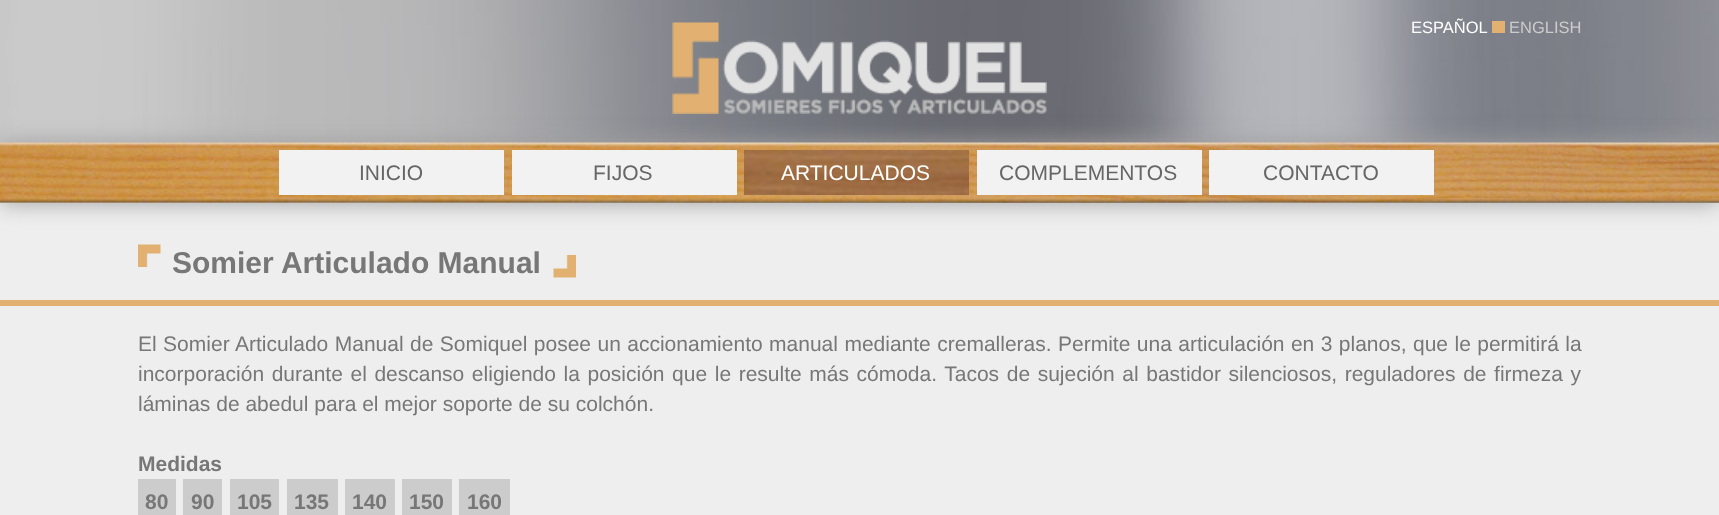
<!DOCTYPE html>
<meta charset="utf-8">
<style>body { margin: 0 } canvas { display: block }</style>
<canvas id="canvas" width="1719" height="515"></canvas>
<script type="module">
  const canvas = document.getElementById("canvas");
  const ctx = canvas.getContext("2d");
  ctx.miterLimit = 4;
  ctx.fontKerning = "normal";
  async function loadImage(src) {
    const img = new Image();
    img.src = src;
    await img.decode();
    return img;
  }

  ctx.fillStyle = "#eeeeee";
  ctx.fillRect(0, 0, 1719, 515);
  ctx.drawImage(await loadImage("img1.png"), 0, 0, 1719, 203);
  ctx.fillStyle = "#a0a0a0";
  ctx.filter = "blur(11px)";
  ctx.beginPath();
  ctx.rect(0, 143, 1719, 60);
  ctx.fill();
  ctx.filter = "none";
  ctx.drawImage(await loadImage("img2.png"), 672, 22, 375, 92);
  ctx.font = "16.5px Liberation Sans";
  ctx.fillStyle = "#ffffff";
  ctx.fillText("ESPAÑOL", 1411, 33);
  ctx.fillStyle = "#e2b171";
  ctx.fillRect(1492, 21, 13, 12);
  ctx.fillStyle = "#cccccc";
  ctx.fillText("ENGLISH", 1509, 33);
  ctx.drawImage(await loadImage("img3.png"), 0, 142, 1719, 61);
  ctx.fillStyle = "#f2f2f2";
  ctx.fillRect(279, 150, 225, 45);
  ctx.font = "21px Liberation Sans";
  ctx.fillStyle = "#666666";
  ctx.fillText("INICIO", 359, 180);
  ctx.fillStyle = "#f2f2f2";
  ctx.fillRect(512, 150, 225, 45);
  ctx.fillStyle = "#666666";
  ctx.fillText("FIJOS", 593, 180);
  ctx.drawImage(await loadImage("img4.png"), 744, 150, 225, 45);
  ctx.fillStyle = "#ffffff";
  ctx.fillText("ARTICULADOS", 781, 180);
  ctx.fillStyle = "#f2f2f2";
  ctx.fillRect(977, 150, 225, 45);
  ctx.fillStyle = "#666666";
  ctx.fillText("COMPLEMENTOS", 999, 180);
  ctx.fillStyle = "#f2f2f2";
  ctx.fillRect(1209, 150, 225, 45);
  ctx.fillStyle = "#666666";
  ctx.fillText("CONTACTO", 1263, 180);
  ctx.drawImage(await loadImage("img5.png"), 138, 244, 23, 23);
  ctx.font = "bold 30px Liberation Sans";
  ctx.fillStyle = "#777777";
  ctx.fillText("Somier Articulado Manual", 172, 273);
  ctx.drawImage(await loadImage("img6.png"), 553, 255, 23, 23);
  ctx.fillStyle = "#e2b171";
  ctx.fillRect(0, 300, 1719, 6);
  ctx.wordSpacing = "0.6px";
  ctx.font = "21px Liberation Sans";
  ctx.fillStyle = "#777777";
  ctx.fillText("El Somier Articulado Manual de Somiquel posee un accionamiento manual mediante cremalleras. Permite una articulación en 3 planos, que le permitirá la", 138, 351);
  ctx.wordSpacing = "1.75px";
  ctx.fillText("incorporación durante el descanso eligiendo la posición que le resulte más cómoda. Tacos de sujeción al bastidor silenciosos, reguladores de firmeza y", 138, 381);
  ctx.wordSpacing = "0px";
  ctx.fillText("láminas de abedul para el mejor soporte de su colchón.", 138, 411);
  ctx.font = "bold 21px Liberation Sans";
  ctx.fillText("Medidas", 138, 471);
  ctx.fillStyle = "#cccccc";
  ctx.fillRect(138, 479, 38, 36);
  ctx.fillStyle = "#777777";
  ctx.fillText("80", 145, 509);
  ctx.fillStyle = "#cccccc";
  ctx.fillRect(183, 479, 39, 36);
  ctx.fillStyle = "#777777";
  ctx.fillText("90", 191, 509);
  ctx.fillStyle = "#cccccc";
  ctx.fillRect(230, 479, 49, 36);
  ctx.fillStyle = "#777777";
  ctx.fillText("105", 237, 509);
  ctx.fillStyle = "#cccccc";
  ctx.fillRect(287, 479, 51, 36);
  ctx.fillStyle = "#777777";
  ctx.fillText("135", 294, 509);
  ctx.fillStyle = "#cccccc";
  ctx.fillRect(345, 479, 50, 36);
  ctx.fillStyle = "#777777";
  ctx.fillText("140", 352, 509);
  ctx.fillStyle = "#cccccc";
  ctx.fillRect(402, 479, 50, 36);
  ctx.fillStyle = "#777777";
  ctx.fillText("150", 409, 509);
  ctx.fillStyle = "#cccccc";
  ctx.fillRect(459, 479, 51, 36);
  ctx.fillStyle = "#777777";
  ctx.fillText("160", 467, 509);
</script>
